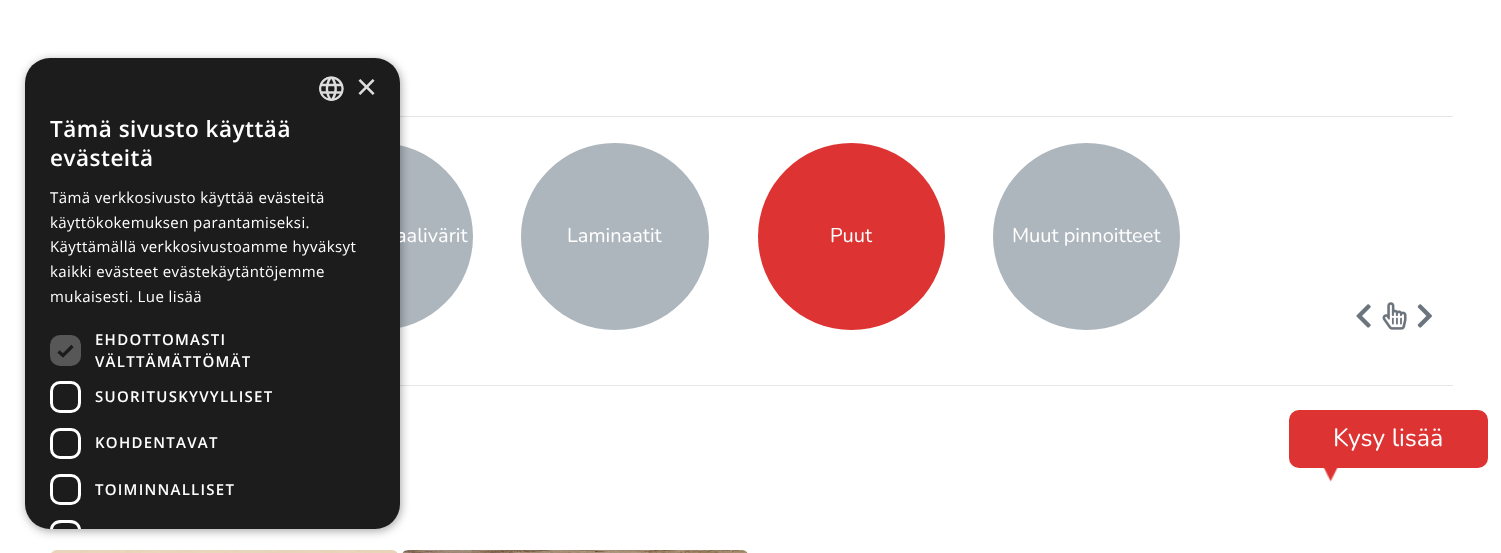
<!DOCTYPE html>
<meta charset="utf-8">
<style>body { margin: 0 } canvas { display: block }</style>
<canvas id="canvas" width="1501" height="553"></canvas>
<script type="module">
  const canvas = document.getElementById("canvas");
  const ctx = canvas.getContext("2d");
  ctx.miterLimit = 4;
  ctx.fontKerning = "normal";
  async function loadImage(src) {
    const img = new Image();
    img.src = src;
    await img.decode();
    return img;
  }

  ctx.fillStyle = "#ffffff";
  ctx.fillRect(0, 0, 1501, 553);
  ctx.fillStyle = "#e6e6e6";
  ctx.fillRect(400, 116, 1053, 1);
  ctx.fillStyle = "#adb5bd";
  ctx.beginPath();
  ctx.roundRect(285, 143, 188, 187, 93.5);
  ctx.fill();
  ctx.fillStyle = "#e6e6e6";
  ctx.fillRect(400, 385, 1053, 1);
  ctx.fillStyle = "rgba(0, 0, 0, 0.35)";
  ctx.filter = "blur(5px)";
  ctx.beginPath();
  ctx.roundRect(26, 60, 375, 471, 25);
  ctx.fill();
  ctx.filter = "none";
  ctx.font = "200 20px Nunito";
  ctx.fillStyle = "#ffffff";
  ctx.fillText("aalivärit", 396, 242);
  ctx.fillStyle = "#1c1c1c";
  ctx.beginPath();
  ctx.roundRect(25, 58, 375, 471, 25);
  ctx.fill();
  ctx.drawImage(await loadImage("img1.png"), 319, 76, 25, 25);
  ctx.font = "36px Liberation Sans";
  ctx.fillStyle = "#dddddd";
  ctx.fillText("×", 356, 99);
  ctx.letterSpacing = "0.5px";
  ctx.font = "600 22.5px Open Sans";
  ctx.fillStyle = "#ffffff";
  ctx.fillText("Tämä sivusto käyttää", 50, 137);
  ctx.fillText("evästeitä", 50, 166);
  ctx.letterSpacing = "0.4px";
  ctx.font = "15px Open Sans";
  ctx.fillText("Tämä verkkosivusto käyttää evästeitä", 50, 203);
  ctx.fillText("käyttökokemuksen parantamiseksi.", 50, 228);
  ctx.fillText("Käyttämällä verkkosivustoamme hyväksyt", 50, 252);
  ctx.fillText("kaikki evästeet evästekäytäntöjemme", 50, 277);
  ctx.fillText("mukaisesti. Lue lisää", 50, 302);
  ctx.fillStyle = "#575757";
  ctx.beginPath();
  ctx.roundRect(50, 335, 31, 31, 10);
  ctx.fill();
  ctx.beginPath();
  ctx.moveTo(58.5, 351.5);
  ctx.lineTo(63, 355.5);
  ctx.lineTo(72.5, 346);
  ctx.strokeStyle = "#1c1c1c";
  ctx.lineWidth = 3.3;
  ctx.stroke();
  ctx.letterSpacing = "1.25px";
  ctx.font = "600 15px Open Sans";
  ctx.fillStyle = "#ffffff";
  ctx.fillText("EHDOTTOMASTI", 95, 345);
  ctx.fillText("VÄLTTÄMÄTTÖMÄT", 95, 367);
  ctx.beginPath();
  ctx.roundRect(51.5, 382.5, 28, 29, 8.5);
  ctx.strokeStyle = "#ffffff";
  ctx.lineWidth = 3;
  ctx.stroke();
  ctx.fillText("SUORITUSKYVYLLISET", 95, 402);
  ctx.beginPath();
  ctx.roundRect(51.5, 429.5, 28, 28, 8.5);
  ctx.stroke();
  ctx.fillText("KOHDENTAVAT", 95, 448);
  ctx.beginPath();
  ctx.roundRect(51.5, 475.5, 28, 28, 8.5);
  ctx.stroke();
  ctx.fillText("TOIMINNALLISET", 95, 495);
  ctx.beginPath();
  ctx.moveTo(60, 520);
  ctx.bezierCurveTo(55, 520, 50.5, 524, 50, 529);
  ctx.lineTo(53, 529);
  ctx.bezierCurveTo(54, 522.5, 60.5, 523, 65.5, 523);
  ctx.bezierCurveTo(70.5, 523, 77, 522.5, 78, 529);
  ctx.lineTo(81, 529);
  ctx.bezierCurveTo(80.5, 524, 76, 520, 71, 520);
  ctx.closePath();
  ctx.fill();
  ctx.fillStyle = "#adb5bd";
  ctx.beginPath();
  ctx.roundRect(521, 143, 188, 187, 93.5);
  ctx.fill();
  ctx.letterSpacing = "0px";
  ctx.font = "200 20px Nunito";
  ctx.fillStyle = "#ffffff";
  ctx.fillText("Laminaatit", 567, 242);
  ctx.fillStyle = "#dd3333";
  ctx.beginPath();
  ctx.arc(851.5, 236.5, 93.5, 0, Math.PI * 2);
  ctx.fill();
  ctx.fillStyle = "#ffffff";
  ctx.fillText("Puut", 830, 242);
  ctx.fillStyle = "#adb5bd";
  ctx.beginPath();
  ctx.arc(1086.5, 236.5, 93.5, 0, Math.PI * 2);
  ctx.fill();
  ctx.fillStyle = "#ffffff";
  ctx.fillText("Muut pinnoitteet", 1012, 242);
  ctx.drawImage(await loadImage("img2.png"), 1356, 304, 15, 24);
  ctx.drawImage(await loadImage("img3.png"), 1382, 302, 25, 28);
  ctx.drawImage(await loadImage("img4.png"), 1417, 304, 15, 24);
  ctx.drawImage(await loadImage("img5.png"), 51, 550, 347, 3);
  ctx.drawImage(await loadImage("img6.png"), 402, 550, 346, 3);
  ctx.fillStyle = "#dd3333";
  ctx.beginPath();
  ctx.roundRect(1289, 410, 199, 58, 10);
  ctx.fill();
  ctx.font = "200 25px Nunito";
  ctx.fillStyle = "#ffffff";
  ctx.fillText("Kysy lisää", 1333, 446);
  ctx.drawImage(await loadImage("img7.png"), 1323, 468, 15, 14);
</script>
